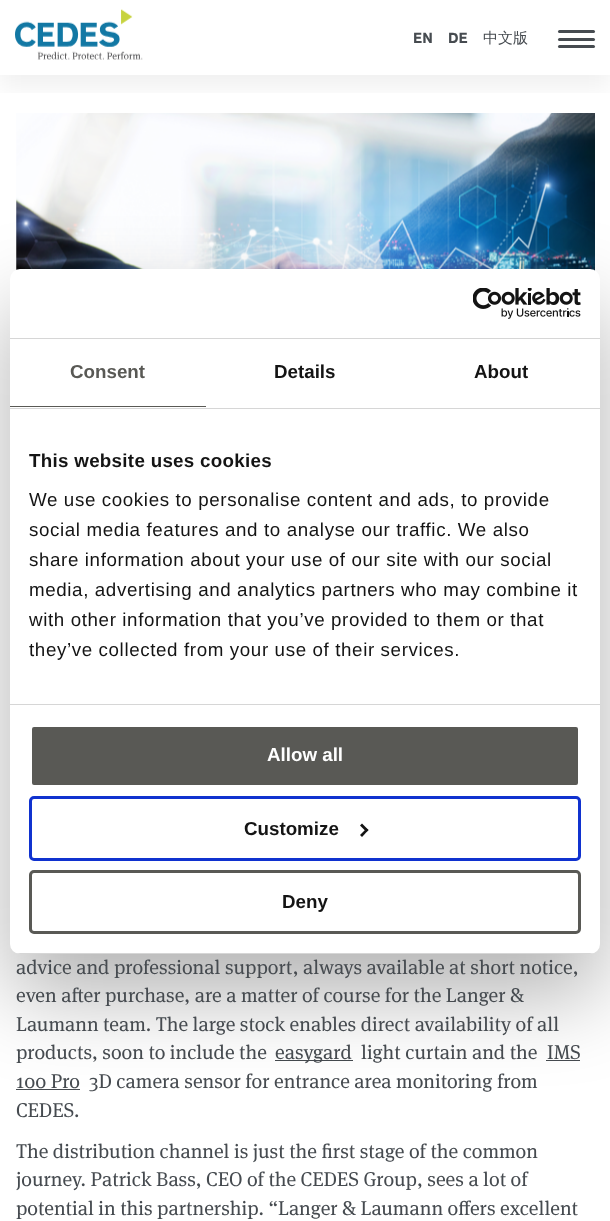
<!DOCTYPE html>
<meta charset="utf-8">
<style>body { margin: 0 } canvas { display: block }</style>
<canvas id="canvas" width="610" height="1221"></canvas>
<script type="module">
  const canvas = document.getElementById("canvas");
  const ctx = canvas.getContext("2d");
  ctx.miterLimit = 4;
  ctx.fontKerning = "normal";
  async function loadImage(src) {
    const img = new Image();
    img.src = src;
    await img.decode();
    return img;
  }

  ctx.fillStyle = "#ffffff";
  ctx.fillRect(0, 0, 610, 1221);
  ctx.drawImage(await loadImage("img3.png"), 16, 113, 579, 158);
  ctx.save();
  ctx.beginPath();
  ctx.rect(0, 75, 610, 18);
  ctx.clip();
  ctx.fillStyle = "rgba(0, 0, 0, 0.06)";
  ctx.filter = "blur(12.5px)";
  ctx.beginPath();
  ctx.rect(0, 13, 610, 75);
  ctx.fill();
  ctx.filter = "none";
  ctx.restore();
  ctx.drawImage(await loadImage("img1.png"), 15, 9, 128, 51);
  ctx.font = "bold 15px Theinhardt";
  ctx.fillStyle = "#464b50";
  ctx.fillText("EN", 413, 43);
  ctx.fillText("DE", 448, 43);
  ctx.font = "500 15px WenQuanYi Zen Hei";
  ctx.fillText("中文版", 483, 43);
  ctx.beginPath();
  ctx.roundRect(558, 38, 37, 3, 1.5);
  ctx.fill();
  ctx.beginPath();
  ctx.roundRect(558, 30, 37, 3, 1.5);
  ctx.fill();
  ctx.beginPath();
  ctx.roundRect(558, 45, 37, 3, 1.5);
  ctx.fill();
  ctx.fillRect(275, 1060, 78, 1);
  ctx.fillRect(546, 1060, 34, 1);
  ctx.fillRect(16, 1089, 64, 1);
  ctx.fillStyle = "rgba(0, 0, 0, 0.3)";
  ctx.filter = "blur(42.5px)";
  ctx.beginPath();
  ctx.roundRect(10, 309, 590, 685, 10);
  ctx.fill();
  ctx.filter = "none";
  ctx.fillStyle = "#ffffff";
  ctx.beginPath();
  ctx.roundRect(10, 269, 590, 685, 10);
  ctx.fill();
  ctx.fillStyle = "#d6d6d6";
  ctx.fillRect(10, 338, 590, 1);
  ctx.drawImage(await loadImage("img2.png"), 473, 288, 108, 31);
  ctx.fillRect(10, 408, 590, 1);
  ctx.fillStyle = "#595955";
  ctx.fillRect(10, 406, 196, 1);
  ctx.font = "bold 18.75px Liberation Sans";
  ctx.fillText("Consent", 70, 378);
  ctx.fillStyle = "#141414";
  ctx.fillText("Details", 274, 378);
  ctx.fillText("About", 474, 378);
  ctx.fillStyle = "#d6d6d6";
  ctx.fillRect(10, 704, 590, 1);
  ctx.letterSpacing = "0.3px";
  ctx.fillStyle = "#141414";
  ctx.fillText("This website uses cookies", 29, 467);
  ctx.letterSpacing = "0.62px";
  ctx.font = "18.75px Liberation Sans";
  ctx.fillText("We use cookies to personalise content and ads, to provide", 29, 506);
  ctx.fillText("social media features and to analyse our traffic. We also", 29, 536);
  ctx.fillText("share information about your use of our site with our social", 29, 566);
  ctx.fillText("media, advertising and analytics partners who may combine it", 29, 596);
  ctx.fillText("with other information that you’ve provided to them or that", 29, 626);
  ctx.fillText("they’ve collected from your use of their services.", 29, 656);
  ctx.save();
  ctx.beginPath();
  ctx.roundRect(10, 269, 590, 685, 10);
  ctx.clip();
  ctx.fillStyle = "#d6d6d6";
  ctx.fillRect(10, 953, 590, 1);
  ctx.restore();
  ctx.fillStyle = "#595955";
  ctx.beginPath();
  ctx.roundRect(30.5, 725.5, 549, 61, 3.5);
  ctx.fill();
  ctx.strokeStyle = "#ffffff";
  ctx.lineWidth = 3;
  ctx.stroke();
  ctx.letterSpacing = "0px";
  ctx.font = "bold 18.75px Liberation Sans";
  ctx.fillStyle = "#ffffff";
  ctx.fillText("Allow all", 267, 761);
  ctx.beginPath();
  ctx.roundRect(30.5, 797.5, 549, 62, 3.5);
  ctx.strokeStyle = "#1032cf";
  ctx.stroke();
  ctx.fillStyle = "#141414";
  ctx.fillText("Customize", 244, 835);
  ctx.beginPath();
  ctx.moveTo(362, 823.5);
  ctx.lineTo(368.5, 830);
  ctx.lineTo(366.5, 832);
  ctx.lineTo(360, 825.5);
  ctx.closePath();
  ctx.fill();
  ctx.beginPath();
  ctx.moveTo(366.5, 828.5);
  ctx.lineTo(368.5, 830);
  ctx.lineTo(362, 837);
  ctx.lineTo(360, 835);
  ctx.closePath();
  ctx.fill();
  ctx.beginPath();
  ctx.roundRect(30.5, 871.5, 549, 61, 3.5);
  ctx.strokeStyle = "#595955";
  ctx.stroke();
  ctx.fillText("Deny", 282, 908);
  ctx.font = "500 20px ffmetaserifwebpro";
  ctx.fillStyle = "#464b50";
  ctx.fillText("advice and professional support, always available at short notice,", 16, 974);
  ctx.fillText("even after purchase, are a matter of course for the Langer &", 16, 1002);
  ctx.fillText("Laumann team. The large stock enables direct availability of all", 16, 1031);
  ctx.fillText("products, soon to include the", 16, 1059);
  ctx.fillText("easygard", 275, 1059);
  ctx.fillText("light curtain and the", 361, 1059);
  ctx.fillText("IMS", 547, 1059);
  ctx.fillText("100 Pro", 16, 1088);
  ctx.fillText("3D camera sensor for entrance area monitoring from", 89, 1088);
  ctx.fillText("CEDES.", 16, 1117);
  ctx.fillText("The distribution channel is just the first stage of the common", 16, 1158);
  ctx.fillText("journey. Patrick Bass, CEO of the CEDES Group, sees a lot of", 16, 1186);
  ctx.fillText("potential in this partnership. “Langer & Laumann offers excellent", 16, 1215);
</script>
